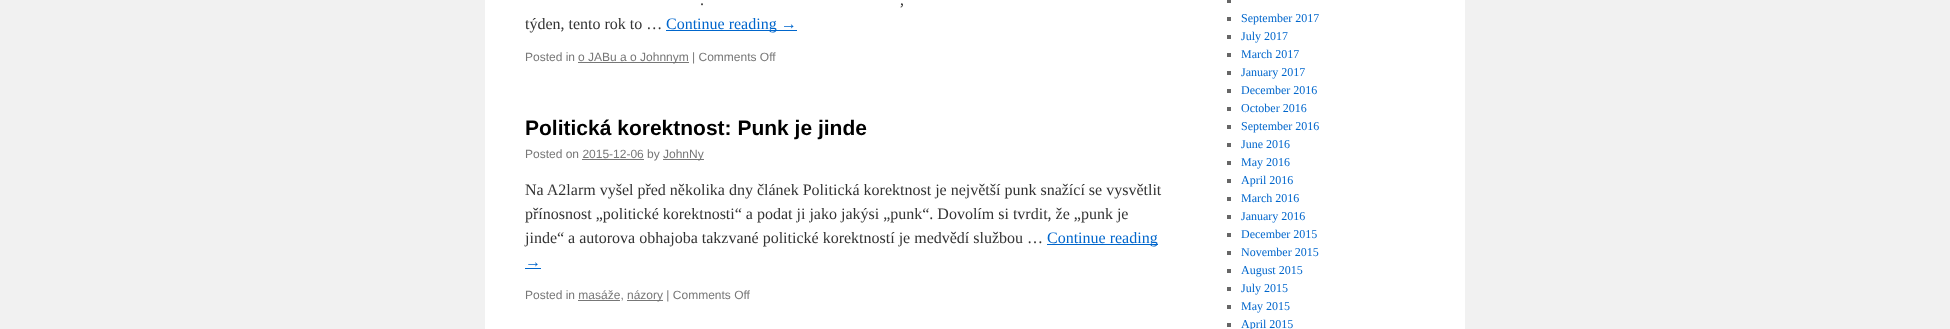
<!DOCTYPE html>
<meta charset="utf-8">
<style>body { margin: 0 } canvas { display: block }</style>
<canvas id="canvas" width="1950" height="329"></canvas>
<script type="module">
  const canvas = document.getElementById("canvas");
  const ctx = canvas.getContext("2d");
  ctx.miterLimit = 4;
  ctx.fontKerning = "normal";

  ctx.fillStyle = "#f1f1f1";
  ctx.fillRect(0, 0, 1950, 329);
  ctx.fillStyle = "#ffffff";
  ctx.fillRect(485, 0, 980, 329);
  ctx.font = "16px Liberation Serif";
  ctx.fillStyle = "#333333";
  ctx.fillText(".", 700, 5);
  ctx.fillText(",", 900, 5);
  ctx.fillText("týden, tento rok to …", 525, 29);
  ctx.fillStyle = "#0066cc";
  ctx.fillRect(666, 30, 131, 1);
  ctx.fillText("Continue reading →", 666, 29);
  ctx.font = "12px Liberation Sans";
  ctx.fillStyle = "#777777";
  ctx.fillText("Posted in", 525, 61);
  ctx.fillRect(578, 62, 111, 1);
  ctx.fillText("o JABu a o Johnnym | Comments Off", 578, 61);
  ctx.font = "bold 21px Liberation Sans";
  ctx.fillStyle = "#000000";
  ctx.fillText("Politická korektnost: Punk je jinde", 525, 135);
  ctx.font = "12px Liberation Sans";
  ctx.fillStyle = "#777777";
  ctx.fillText("Posted on 2015-12-06 by", 525, 158);
  ctx.fillRect(663, 159, 41, 1);
  ctx.fillText("JohnNy", 663, 158);
  ctx.fillRect(582, 159, 62, 1);
  ctx.font = "16px Liberation Serif";
  ctx.fillStyle = "#333333";
  ctx.fillText("Na A2larm vyšel před několika dny článek Politická korektnost je největší punk snažící se vysvětlit", 525, 195);
  ctx.fillText("přínosnost „politické korektnosti“ a podat ji jako jakýsi „punk“. Dovolím si tvrdit, že „punk je", 525, 219);
  ctx.fillText("jinde“ a autorova obhajoba takzvané politické korektností je medvědí službou …", 525, 243);
  ctx.fillStyle = "#0066cc";
  ctx.fillRect(1047, 244, 111, 1);
  ctx.fillText("Continue reading", 1047, 243);
  ctx.fillText("→", 525, 267);
  ctx.fillRect(525, 268, 16, 1);
  ctx.font = "12px Liberation Sans";
  ctx.fillStyle = "#777777";
  ctx.fillText("Posted in masáže,", 525, 299);
  ctx.fillRect(578, 300, 42, 1);
  ctx.fillRect(627, 300, 36, 1);
  ctx.fillText("názory | Comments Off", 627, 299);
  ctx.fillStyle = "#666666";
  ctx.fillRect(1227, 0, 4, 3);
  ctx.fillRect(1227, 17, 4, 4);
  ctx.font = "12px Liberation Serif";
  ctx.fillStyle = "#0066cc";
  ctx.fillText("September 2017", 1241, 22);
  ctx.fillStyle = "#666666";
  ctx.fillRect(1227, 35, 4, 4);
  ctx.fillStyle = "#0066cc";
  ctx.fillText("July 2017", 1241, 40);
  ctx.fillStyle = "#666666";
  ctx.fillRect(1227, 53, 4, 4);
  ctx.fillStyle = "#0066cc";
  ctx.fillText("March 2017", 1241, 58);
  ctx.fillStyle = "#666666";
  ctx.fillRect(1227, 71, 4, 4);
  ctx.fillStyle = "#0066cc";
  ctx.fillText("January 2017", 1241, 76);
  ctx.fillStyle = "#666666";
  ctx.fillRect(1227, 89, 4, 4);
  ctx.fillStyle = "#0066cc";
  ctx.fillText("December 2016", 1241, 94);
  ctx.fillStyle = "#666666";
  ctx.fillRect(1227, 107, 4, 4);
  ctx.fillStyle = "#0066cc";
  ctx.fillText("October 2016", 1241, 112);
  ctx.fillStyle = "#666666";
  ctx.fillRect(1227, 125, 4, 4);
  ctx.fillStyle = "#0066cc";
  ctx.fillText("September 2016", 1241, 130);
  ctx.fillStyle = "#666666";
  ctx.fillRect(1227, 143, 4, 4);
  ctx.fillStyle = "#0066cc";
  ctx.fillText("June 2016", 1241, 148);
  ctx.fillStyle = "#666666";
  ctx.fillRect(1227, 161, 4, 4);
  ctx.fillStyle = "#0066cc";
  ctx.fillText("May 2016", 1241, 166);
  ctx.fillStyle = "#666666";
  ctx.fillRect(1227, 179, 4, 4);
  ctx.fillStyle = "#0066cc";
  ctx.fillText("April 2016", 1241, 184);
  ctx.fillStyle = "#666666";
  ctx.fillRect(1227, 197, 4, 4);
  ctx.fillStyle = "#0066cc";
  ctx.fillText("March 2016", 1241, 202);
  ctx.fillStyle = "#666666";
  ctx.fillRect(1227, 215, 4, 4);
  ctx.fillStyle = "#0066cc";
  ctx.fillText("January 2016", 1241, 220);
  ctx.fillStyle = "#666666";
  ctx.fillRect(1227, 233, 4, 4);
  ctx.fillStyle = "#0066cc";
  ctx.fillText("December 2015", 1241, 238);
  ctx.fillStyle = "#666666";
  ctx.fillRect(1227, 251, 4, 4);
  ctx.fillStyle = "#0066cc";
  ctx.fillText("November 2015", 1241, 256);
  ctx.fillStyle = "#666666";
  ctx.fillRect(1227, 269, 4, 4);
  ctx.fillStyle = "#0066cc";
  ctx.fillText("August 2015", 1241, 274);
  ctx.fillStyle = "#666666";
  ctx.fillRect(1227, 287, 4, 4);
  ctx.fillStyle = "#0066cc";
  ctx.fillText("July 2015", 1241, 292);
  ctx.fillStyle = "#666666";
  ctx.fillRect(1227, 305, 4, 4);
  ctx.fillStyle = "#0066cc";
  ctx.fillText("May 2015", 1241, 310);
  ctx.fillStyle = "#666666";
  ctx.fillRect(1227, 323, 4, 4);
  ctx.fillStyle = "#0066cc";
  ctx.fillText("April 2015", 1241, 328);
</script>
